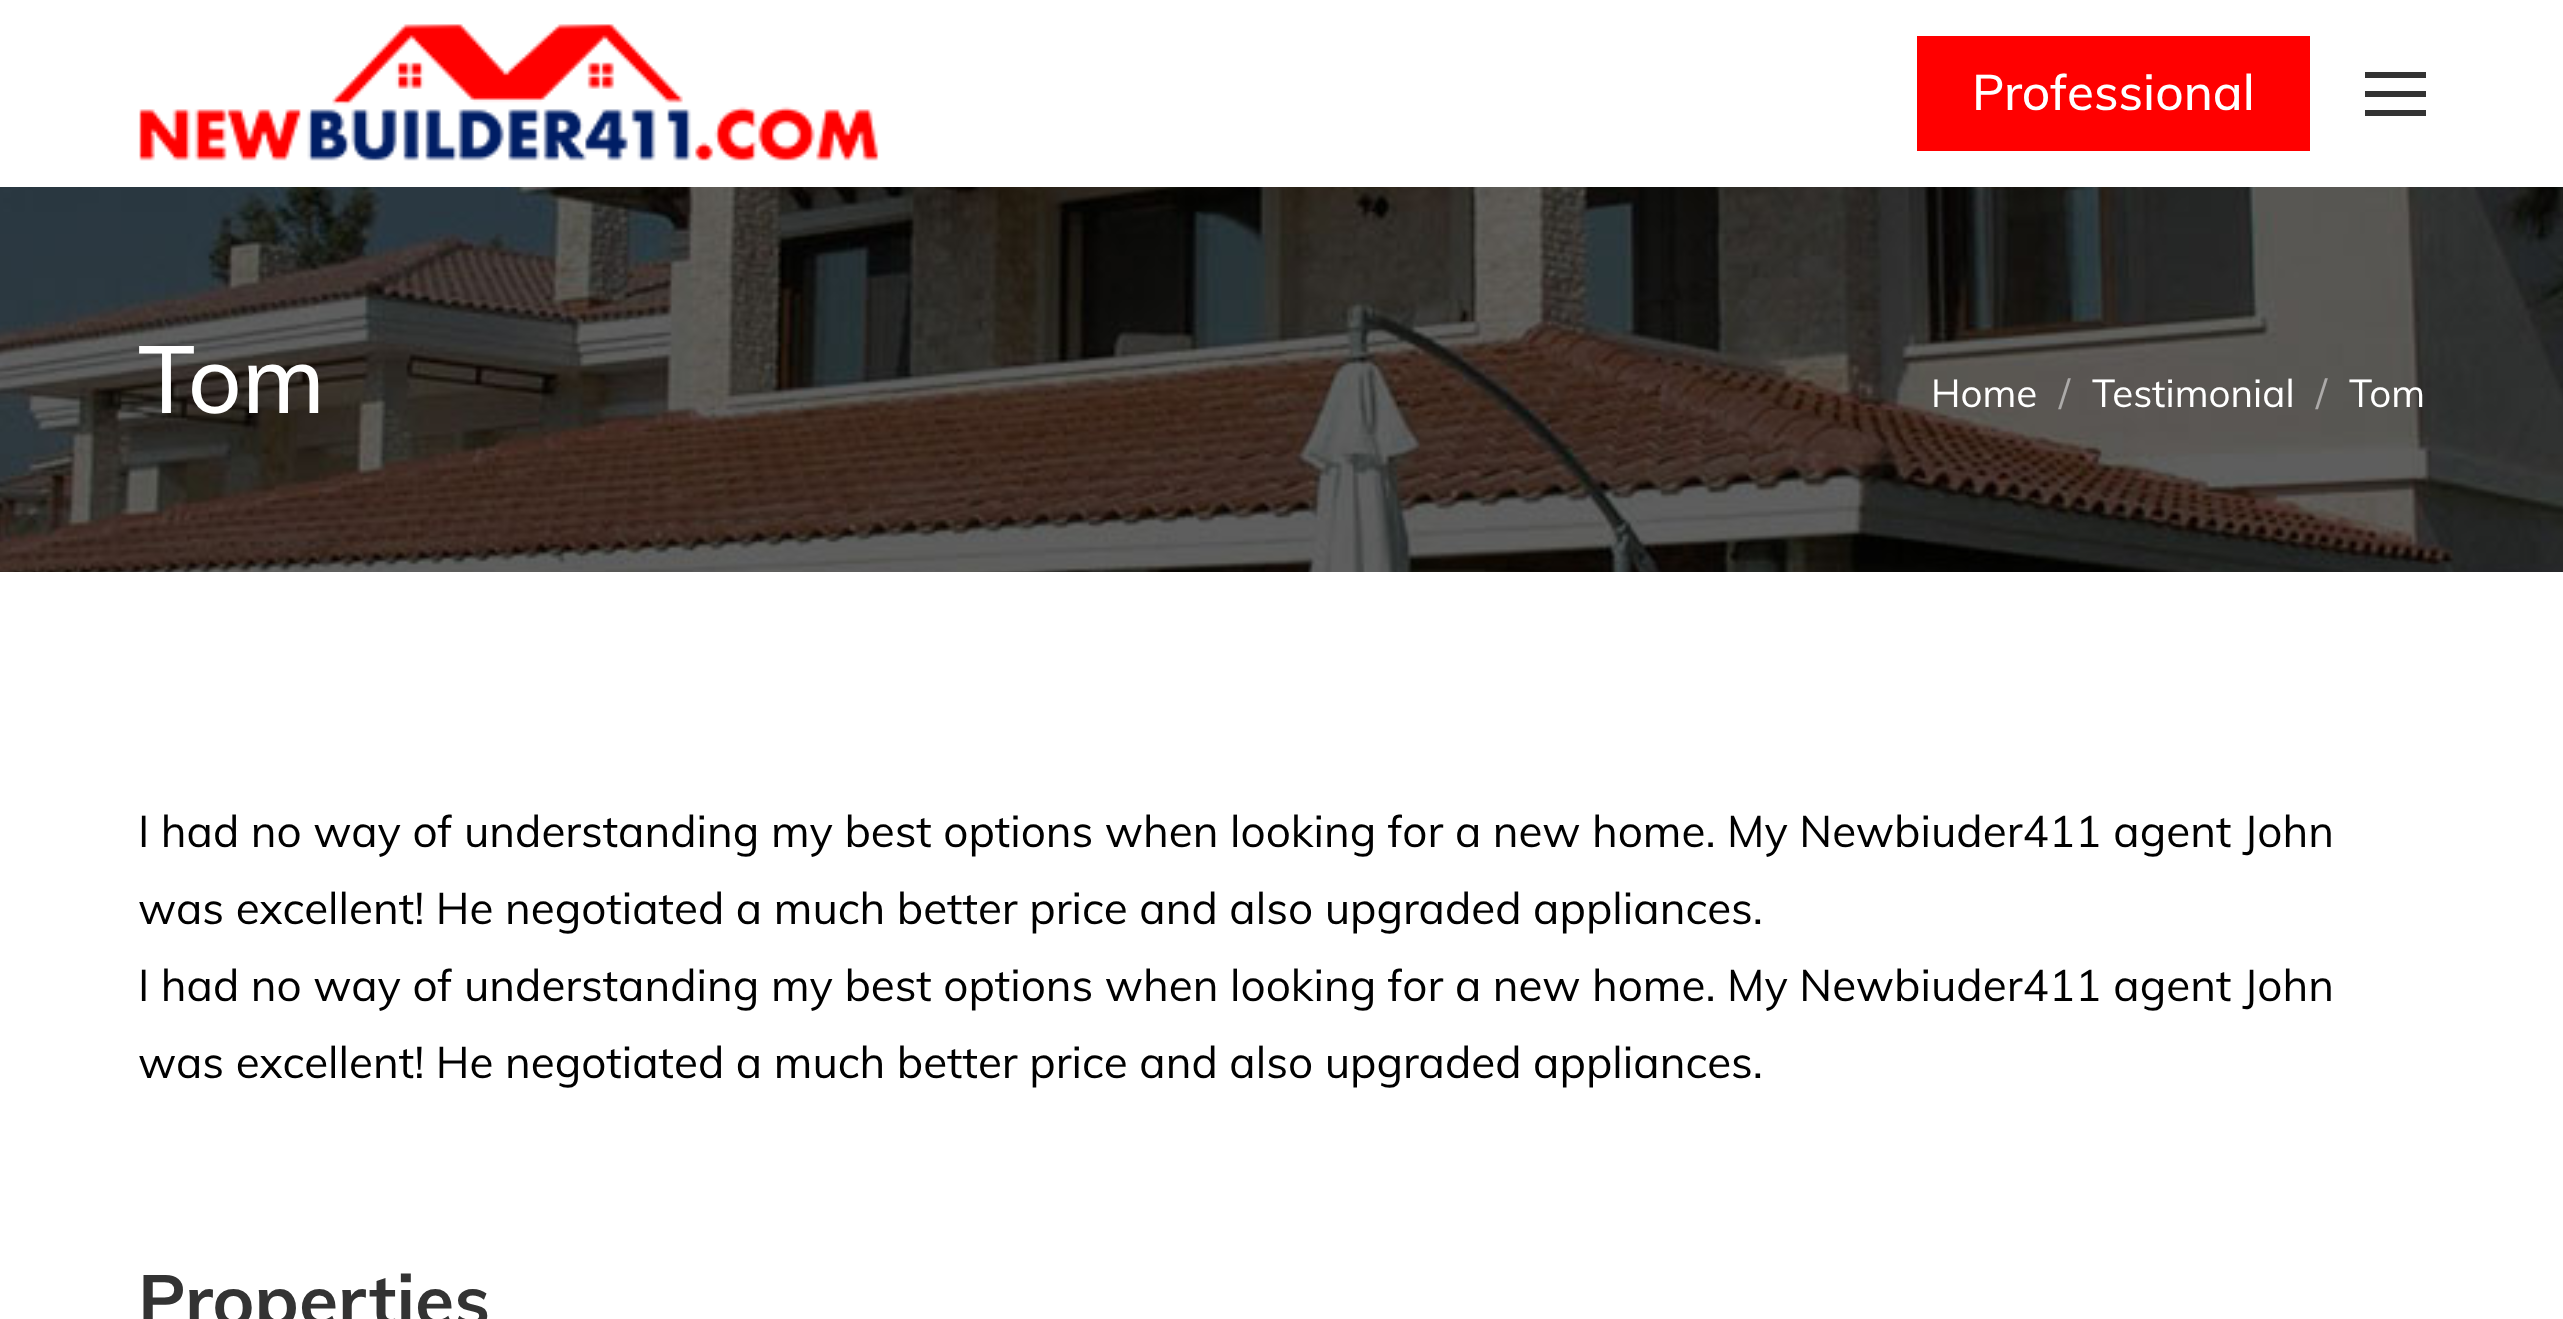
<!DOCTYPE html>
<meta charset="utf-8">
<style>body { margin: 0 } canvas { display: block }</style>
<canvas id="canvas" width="2563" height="1319"></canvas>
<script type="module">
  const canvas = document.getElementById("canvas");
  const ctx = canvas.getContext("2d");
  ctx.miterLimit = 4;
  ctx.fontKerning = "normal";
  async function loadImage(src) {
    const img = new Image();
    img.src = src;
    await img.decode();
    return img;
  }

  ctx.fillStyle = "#ffffff";
  ctx.fillRect(0, 0, 2563, 1319);
  ctx.drawImage(await loadImage("img1.png"), 139, 24, 740, 137);
  ctx.fillStyle = "#ff0000";
  ctx.fillRect(1917, 36, 393, 115);
  ctx.font = "500 49.5px Muli";
  ctx.fillStyle = "#ffffff";
  ctx.fillText("Professional", 1972, 110);
  ctx.fillStyle = "#333333";
  ctx.fillRect(2365, 91, 61, 6);
  ctx.fillRect(2365, 72, 61, 6);
  ctx.fillRect(2365, 110, 61, 6);
  ctx.drawImage(await loadImage("img2.png"), 0, 187, 2563, 385);
  ctx.font = "500 94px Muli";
  ctx.fillStyle = "#ffffff";
  ctx.fillText("Tom", 138, 413);
  ctx.font = "38.5px Muli";
  ctx.fillText("Home", 1931, 407);
  ctx.fillStyle = "#acaaa9";
  ctx.fillText("/", 2059, 407);
  ctx.fillStyle = "#ffffff";
  ctx.fillText("Testimonial", 2092, 407);
  ctx.fillStyle = "#acaaa9";
  ctx.fillText("/", 2316, 407);
  ctx.fillStyle = "#ffffff";
  ctx.fillText("Tom", 2349, 407);
  ctx.font = "44px Muli";
  ctx.fillStyle = "#000000";
  ctx.fillText("I had no way of understanding my best options when looking for a new home. My Newbiuder411 agent John", 138, 847);
  ctx.fillText("was excellent! He negotiated a much better price and also upgraded appliances.", 138, 924);
  ctx.fillText("I had no way of understanding my best options when looking for a new home. My Newbiuder411 agent John", 138, 1001);
  ctx.fillText("was excellent! He negotiated a much better price and also upgraded appliances.", 138, 1078);
  ctx.font = "bold 71.5px Muli";
  ctx.fillStyle = "#333333";
  ctx.fillText("Properties", 138, 1326);
</script>
